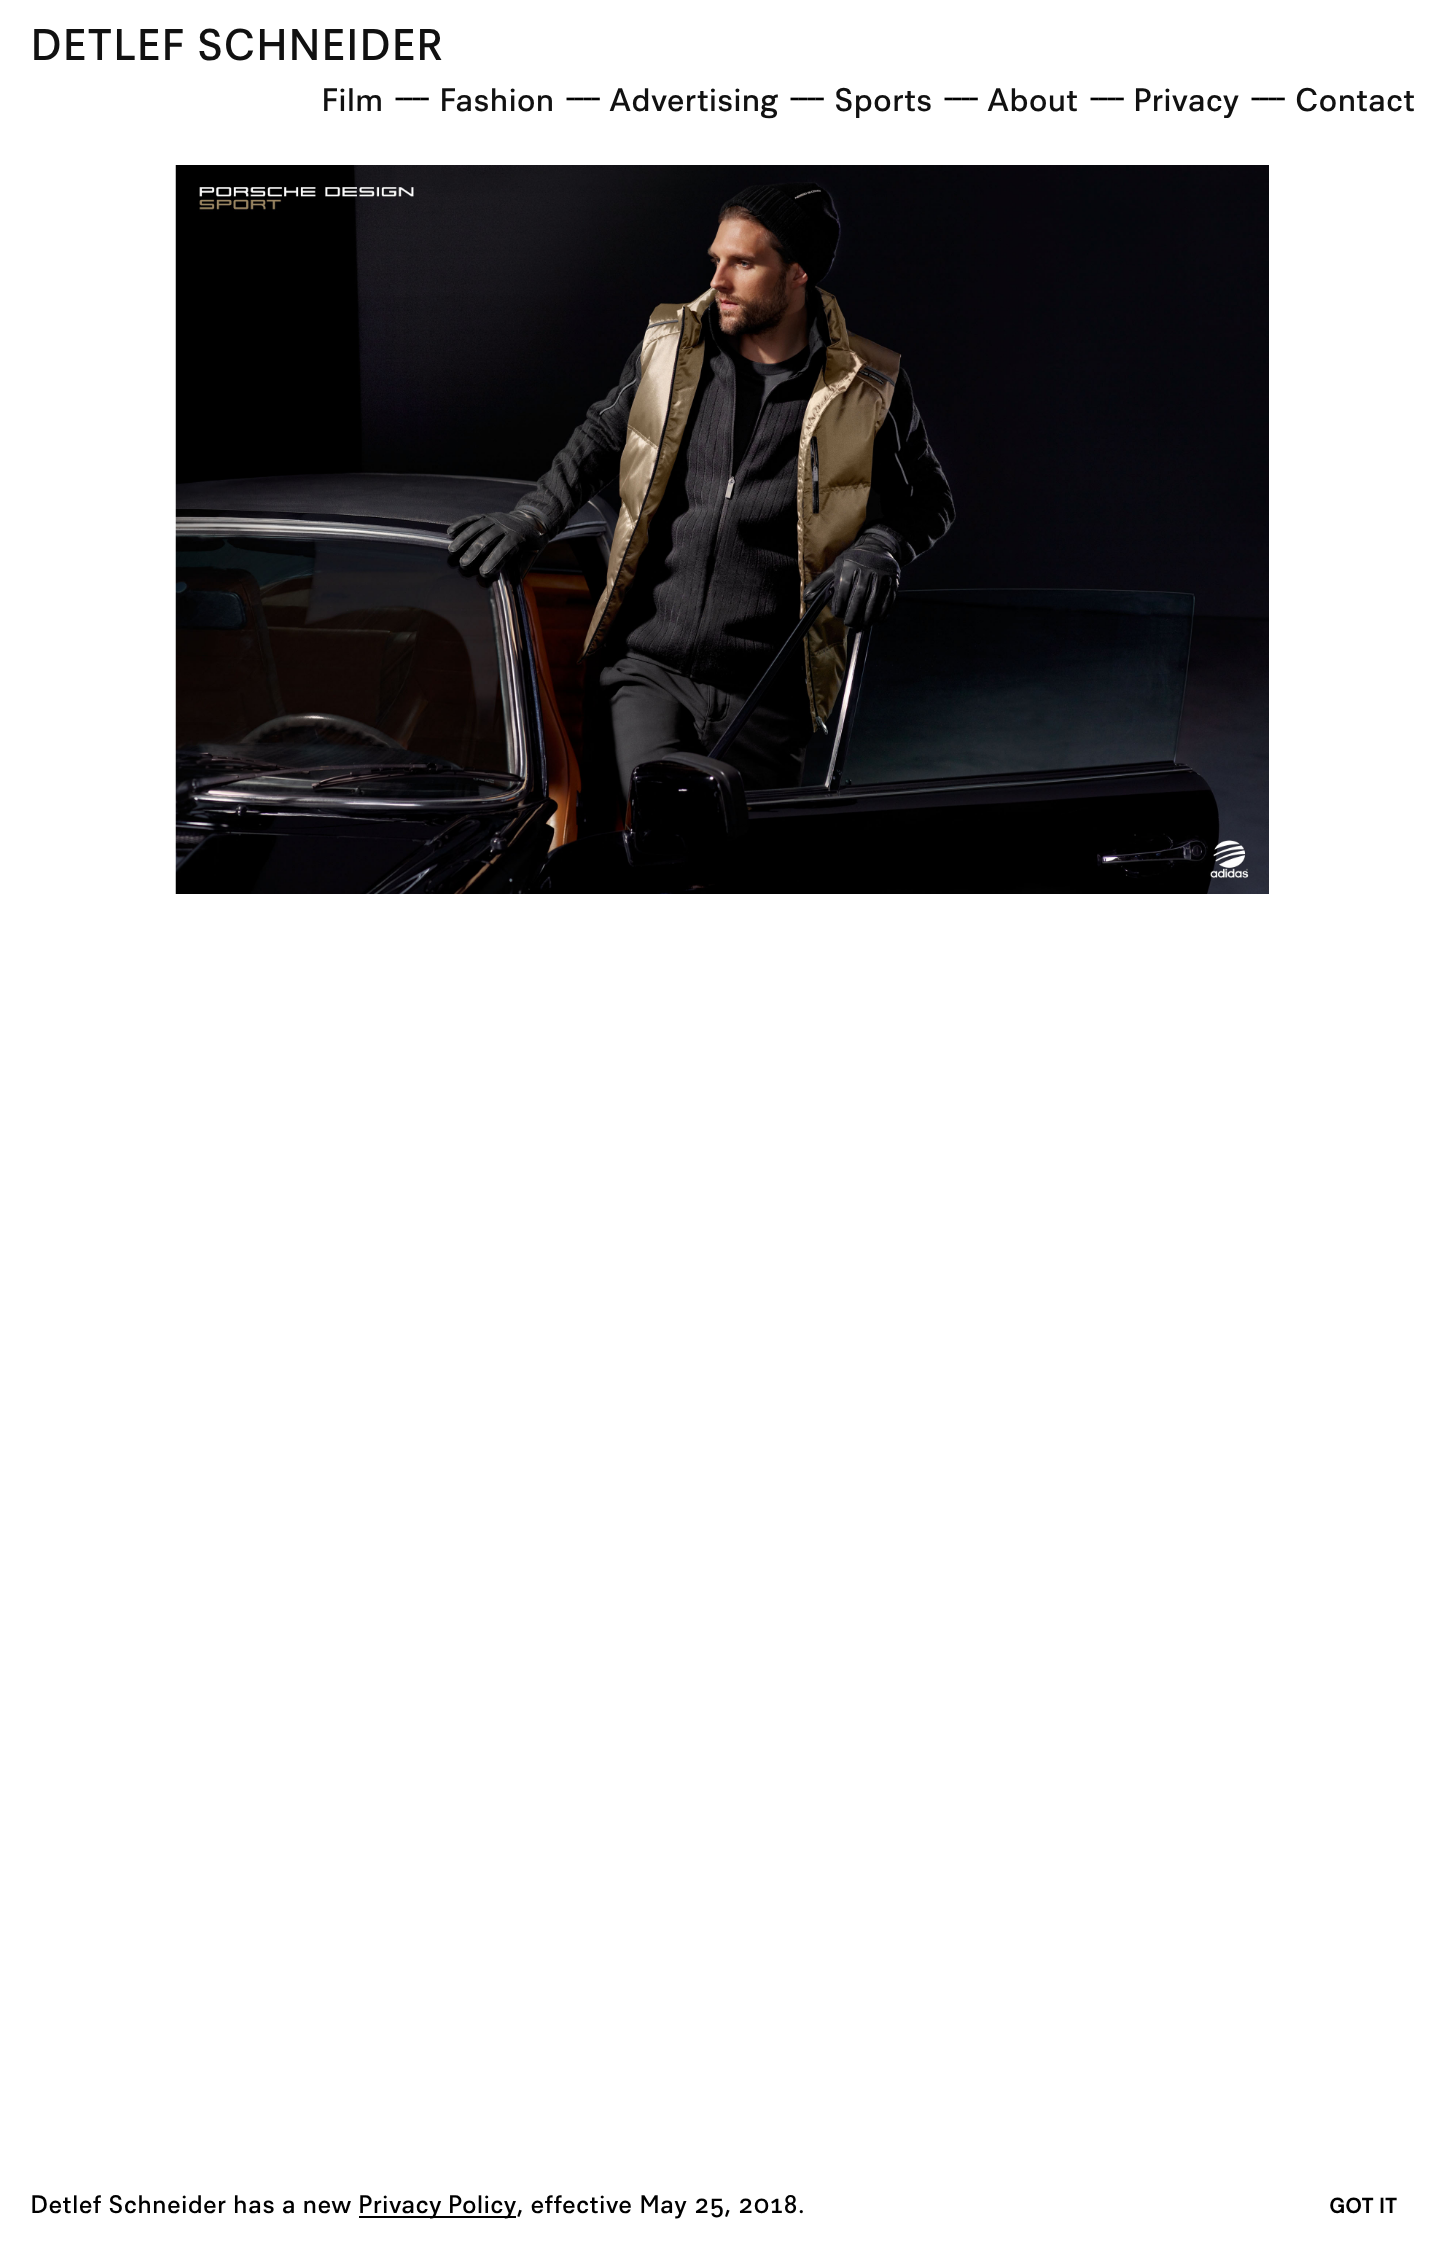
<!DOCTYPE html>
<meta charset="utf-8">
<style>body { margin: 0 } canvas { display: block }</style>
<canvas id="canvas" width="1444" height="2268"></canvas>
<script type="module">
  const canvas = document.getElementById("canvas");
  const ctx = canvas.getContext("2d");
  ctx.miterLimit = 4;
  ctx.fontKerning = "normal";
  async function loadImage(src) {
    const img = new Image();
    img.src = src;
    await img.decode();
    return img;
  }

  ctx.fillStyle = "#ffffff";
  ctx.fillRect(0, 0, 1444, 2268);
  ctx.letterSpacing = "0.4px";
  ctx.font = "42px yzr";
  ctx.fillStyle = "#111111";
  ctx.fillText("DETLEF SCHNEIDER", 30, 60);
  ctx.letterSpacing = "0px";
  ctx.font = "31px yzr";
  ctx.fillText("Film", 321, 111);
  ctx.letterSpacing = "-3px";
  ctx.font = "34px Liberation Sans";
  ctx.fillStyle = "#000000";
  ctx.fillText("----", 394, 108);
  ctx.letterSpacing = "0px";
  ctx.font = "31px yzr";
  ctx.fillStyle = "#111111";
  ctx.fillText("Fashion", 439, 111);
  ctx.letterSpacing = "-3px";
  ctx.font = "34px Liberation Sans";
  ctx.fillStyle = "#000000";
  ctx.fillText("----", 565, 108);
  ctx.letterSpacing = "0px";
  ctx.font = "31px yzr";
  ctx.fillStyle = "#111111";
  ctx.fillText("Advertising", 609, 111);
  ctx.letterSpacing = "-3px";
  ctx.font = "34px Liberation Sans";
  ctx.fillStyle = "#000000";
  ctx.fillText("----", 789, 108);
  ctx.letterSpacing = "0px";
  ctx.font = "31px yzr";
  ctx.fillStyle = "#111111";
  ctx.fillText("Sports", 834, 111);
  ctx.letterSpacing = "-3px";
  ctx.font = "34px Liberation Sans";
  ctx.fillStyle = "#000000";
  ctx.fillText("----", 943, 108);
  ctx.letterSpacing = "0px";
  ctx.font = "31px yzr";
  ctx.fillStyle = "#111111";
  ctx.fillText("About", 987, 111);
  ctx.letterSpacing = "-3px";
  ctx.font = "34px Liberation Sans";
  ctx.fillStyle = "#000000";
  ctx.fillText("----", 1089, 108);
  ctx.letterSpacing = "0px";
  ctx.font = "31px yzr";
  ctx.fillStyle = "#111111";
  ctx.fillText("Privacy", 1133, 111);
  ctx.letterSpacing = "-3px";
  ctx.font = "34px Liberation Sans";
  ctx.fillStyle = "#000000";
  ctx.fillText("----", 1250, 108);
  ctx.letterSpacing = "0px";
  ctx.font = "31px yzr";
  ctx.fillStyle = "#111111";
  ctx.fillText("Contact", 1295, 111);
  ctx.drawImage(await loadImage("img1.png"), 175, 165, 1094, 729);
  ctx.letterSpacing = "0.25px";
  ctx.font = "24px yzr";
  ctx.fillStyle = "#000000";
  ctx.fillText("Detlef Schneider has a new", 30, 2213);
  ctx.fillRect(359, 2216, 157, 2);
  ctx.wordSpacing = "-1px";
  ctx.fillText("Privacy Policy", 358, 2213);
  ctx.wordSpacing = "0px";
  ctx.fillText(", effective May 25, 2018.", 517, 2213);
  ctx.letterSpacing = "0px";
  ctx.font = "bold 20px yzr";
  ctx.fillText("GOT IT", 1329, 2213);
</script>
